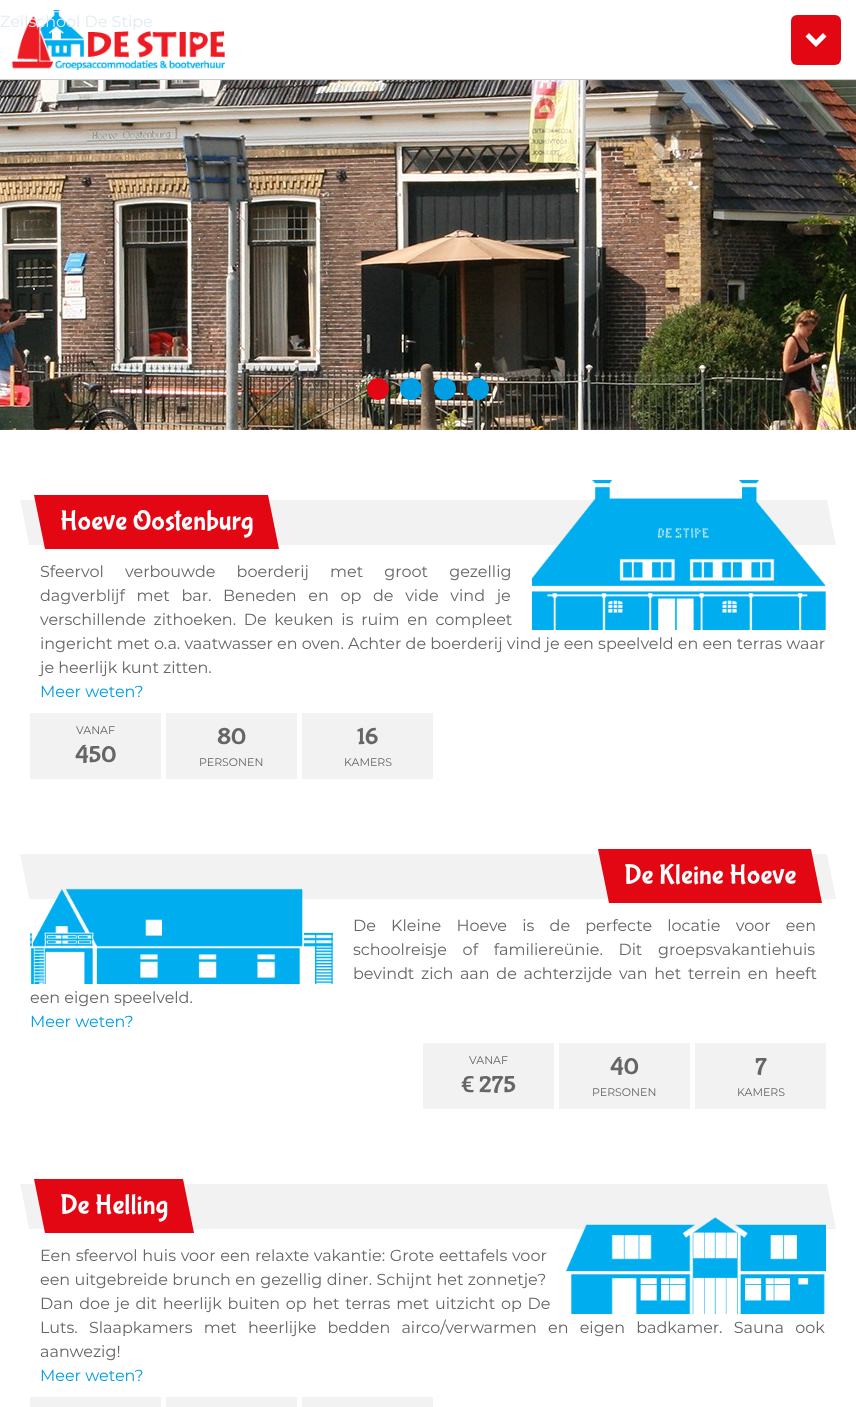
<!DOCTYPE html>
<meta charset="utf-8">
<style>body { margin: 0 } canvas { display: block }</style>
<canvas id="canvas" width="856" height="1407"></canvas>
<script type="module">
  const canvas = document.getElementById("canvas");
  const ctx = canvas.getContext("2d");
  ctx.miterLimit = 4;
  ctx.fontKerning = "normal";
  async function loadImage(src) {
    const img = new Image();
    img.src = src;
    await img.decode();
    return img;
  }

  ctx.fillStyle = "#ffffff";
  ctx.fillRect(0, 0, 856, 1407);
  ctx.fillStyle = "#cccccc";
  ctx.fillRect(0, 79, 856, 1);
  ctx.drawImage(await loadImage("img1.png"), 12, 10, 213, 60);
  ctx.font = "100 16px Montserrat";
  ctx.fillStyle = "#e0ebf3";
  ctx.fillText("Zeilschool De Stipe", 0, 27);
  ctx.fillStyle = "#e30613";
  ctx.beginPath();
  ctx.roundRect(791, 15, 50, 50, 6);
  ctx.fill();
  ctx.fillStyle = "#ffffff";
  ctx.beginPath();
  ctx.moveTo(826.5, 36.5);
  ctx.lineTo(816, 47);
  ctx.lineTo(805.5, 36.5);
  ctx.lineTo(809, 33);
  ctx.lineTo(816, 40);
  ctx.lineTo(823, 33);
  ctx.closePath();
  ctx.fill();
  ctx.drawImage(await loadImage("img2.png"), 0, 80, 856, 350);
  ctx.fillStyle = "#e30613";
  ctx.beginPath();
  ctx.arc(378, 389, 9.5, 0, Math.PI * 2);
  ctx.fill();
  ctx.strokeStyle = "#e30613";
  ctx.lineWidth = 3;
  ctx.stroke();
  ctx.fillStyle = "#009fe3";
  ctx.beginPath();
  ctx.arc(411, 389, 9.5, 0, Math.PI * 2);
  ctx.fill();
  ctx.strokeStyle = "#009fe3";
  ctx.stroke();
  ctx.beginPath();
  ctx.arc(445, 389, 9.5, 0, Math.PI * 2);
  ctx.fill();
  ctx.stroke();
  ctx.beginPath();
  ctx.arc(478, 389, 9.5, 0, Math.PI * 2);
  ctx.fill();
  ctx.stroke();
  ctx.fillStyle = "#f2f2f2";
  ctx.fillRect(29, 500, 798, 45);
  ctx.beginPath();
  ctx.moveTo(29, 500);
  ctx.lineTo(29, 545);
  ctx.lineTo(20, 500);
  ctx.closePath();
  ctx.fill();
  ctx.fillStyle = "#ffffff";
  ctx.beginPath();
  ctx.moveTo(29, 545);
  ctx.lineTo(20, 545);
  ctx.lineTo(20, 500);
  ctx.closePath();
  ctx.fill();
  ctx.fillStyle = "#f2f2f2";
  ctx.beginPath();
  ctx.moveTo(836, 545);
  ctx.lineTo(827, 545);
  ctx.lineTo(827, 500);
  ctx.closePath();
  ctx.fill();
  ctx.fillStyle = "#e30613";
  ctx.fillRect(45, 495, 223, 54);
  ctx.beginPath();
  ctx.moveTo(34, 495);
  ctx.lineTo(45, 495);
  ctx.lineTo(45, 549);
  ctx.closePath();
  ctx.fill();
  ctx.font = "28px Bubblegum Sans";
  ctx.fillStyle = "#ffffff";
  ctx.fillText("Hoeve Oostenburg", 60, 529);
  ctx.fillStyle = "#e30613";
  ctx.beginPath();
  ctx.moveTo(268, 549);
  ctx.lineTo(268, 495);
  ctx.lineTo(279, 549);
  ctx.closePath();
  ctx.fill();
  ctx.wordSpacing = "17px";
  ctx.font = "100 16px Montserrat";
  ctx.fillStyle = "#666666";
  ctx.fillText("Sfeervol verbouwde boerderij met groot gezellig", 40, 577);
  ctx.drawImage(await loadImage("img3.png"), 532, 480, 294, 150);
  ctx.wordSpacing = "7.5px";
  ctx.fillText("dagverblijf met bar. Beneden en op de vide vind je", 40, 601);
  ctx.wordSpacing = "3.5px";
  ctx.fillText("verschillende zithoeken. De keuken is ruim en compleet", 40, 625);
  ctx.wordSpacing = "0px";
  ctx.fillText("ingericht met o.a. vaatwasser en oven. Achter de boerderij vind je een speelveld en een terras waar", 40, 649);
  ctx.fillText("je heerlijk kunt zitten.", 40, 673);
  ctx.fillStyle = "#009fe3";
  ctx.fillText("Meer weten?", 40, 697);
  ctx.fillStyle = "#f2f2f2";
  ctx.fillRect(30, 713, 131, 66);
  ctx.font = "100 11px Montserrat";
  ctx.fillStyle = "#666666";
  ctx.fillText("VANAF", 76, 734);
  ctx.font = "24px Bubblegum Sans";
  ctx.fillText("450", 75, 762);
  ctx.fillStyle = "#f2f2f2";
  ctx.fillRect(166, 713, 131, 66);
  ctx.fillStyle = "#666666";
  ctx.fillText("80", 217, 744);
  ctx.font = "100 11px Montserrat";
  ctx.fillText("PERSONEN", 199, 766);
  ctx.fillStyle = "#f2f2f2";
  ctx.fillRect(302, 713, 131, 66);
  ctx.font = "24px Bubblegum Sans";
  ctx.fillStyle = "#666666";
  ctx.fillText("16", 357, 744);
  ctx.font = "100 11px Montserrat";
  ctx.fillText("KAMERS", 344, 766);
  ctx.fillStyle = "#f2f2f2";
  ctx.fillRect(29, 854, 798, 45);
  ctx.beginPath();
  ctx.moveTo(29, 854);
  ctx.lineTo(29, 899);
  ctx.lineTo(20, 854);
  ctx.closePath();
  ctx.fill();
  ctx.fillStyle = "#ffffff";
  ctx.beginPath();
  ctx.moveTo(29, 899);
  ctx.lineTo(20, 899);
  ctx.lineTo(20, 854);
  ctx.closePath();
  ctx.fill();
  ctx.fillStyle = "#f2f2f2";
  ctx.beginPath();
  ctx.moveTo(836, 899);
  ctx.lineTo(827, 899);
  ctx.lineTo(827, 854);
  ctx.closePath();
  ctx.fill();
  ctx.fillStyle = "#e30613";
  ctx.fillRect(609, 849, 202, 54);
  ctx.beginPath();
  ctx.moveTo(598, 849);
  ctx.lineTo(609, 849);
  ctx.lineTo(609, 903);
  ctx.closePath();
  ctx.fill();
  ctx.font = "28px Bubblegum Sans";
  ctx.fillStyle = "#ffffff";
  ctx.fillText("De Kleine Hoeve", 624, 883);
  ctx.fillStyle = "#e30613";
  ctx.beginPath();
  ctx.moveTo(811, 903);
  ctx.lineTo(811, 849);
  ctx.lineTo(822, 903);
  ctx.closePath();
  ctx.fill();
  ctx.drawImage(await loadImage("img4.png"), 30, 888, 303, 96);
  ctx.wordSpacing = "11px";
  ctx.font = "100 16px Montserrat";
  ctx.fillStyle = "#666666";
  ctx.fillText("De Kleine Hoeve is de perfecte locatie voor een", 353, 931);
  ctx.wordSpacing = "11.5px";
  ctx.fillText("schoolreisje of familiereünie. Dit groepsvakantiehuis", 353, 955);
  ctx.wordSpacing = "2.5px";
  ctx.fillText("bevindt zich aan de achterzijde van het terrein en heeft", 353, 979);
  ctx.wordSpacing = "0px";
  ctx.fillText("een eigen speelveld.", 30, 1003);
  ctx.fillStyle = "#009fe3";
  ctx.fillText("Meer weten?", 30, 1027);
  ctx.fillStyle = "#f2f2f2";
  ctx.fillRect(423, 1043, 131, 66);
  ctx.font = "100 11px Montserrat";
  ctx.fillStyle = "#666666";
  ctx.fillText("VANAF", 469, 1064);
  ctx.font = "24px Bubblegum Sans";
  ctx.fillText("€ 275", 461, 1092);
  ctx.fillStyle = "#f2f2f2";
  ctx.fillRect(559, 1043, 131, 66);
  ctx.fillStyle = "#666666";
  ctx.fillText("40", 610, 1074);
  ctx.font = "100 11px Montserrat";
  ctx.fillText("PERSONEN", 592, 1096);
  ctx.fillStyle = "#f2f2f2";
  ctx.fillRect(695, 1043, 131, 66);
  ctx.font = "24px Bubblegum Sans";
  ctx.fillStyle = "#666666";
  ctx.fillText("7", 755, 1074);
  ctx.font = "100 11px Montserrat";
  ctx.fillText("KAMERS", 737, 1096);
  ctx.fillStyle = "#f2f2f2";
  ctx.fillRect(29, 1184, 798, 45);
  ctx.beginPath();
  ctx.moveTo(29, 1184);
  ctx.lineTo(29, 1229);
  ctx.lineTo(20, 1184);
  ctx.closePath();
  ctx.fill();
  ctx.fillStyle = "#ffffff";
  ctx.beginPath();
  ctx.moveTo(29, 1229);
  ctx.lineTo(20, 1229);
  ctx.lineTo(20, 1184);
  ctx.closePath();
  ctx.fill();
  ctx.fillStyle = "#f2f2f2";
  ctx.beginPath();
  ctx.moveTo(836, 1229);
  ctx.lineTo(827, 1229);
  ctx.lineTo(827, 1184);
  ctx.closePath();
  ctx.fill();
  ctx.fillStyle = "#e30613";
  ctx.fillRect(45, 1179, 138, 54);
  ctx.beginPath();
  ctx.moveTo(34, 1179);
  ctx.lineTo(45, 1179);
  ctx.lineTo(45, 1233);
  ctx.closePath();
  ctx.fill();
  ctx.font = "28px Bubblegum Sans";
  ctx.fillStyle = "#ffffff";
  ctx.fillText("De Helling", 60, 1213);
  ctx.fillStyle = "#e30613";
  ctx.beginPath();
  ctx.moveTo(183, 1233);
  ctx.lineTo(183, 1179);
  ctx.lineTo(194, 1233);
  ctx.closePath();
  ctx.fill();
  ctx.wordSpacing = "0.5px";
  ctx.font = "100 16px Montserrat";
  ctx.fillStyle = "#666666";
  ctx.fillText("Een sfeervol huis voor een relaxte vakantie: Grote eettafels voor", 40, 1261);
  ctx.drawImage(await loadImage("img5.png"), 566, 1217, 260, 97);
  ctx.wordSpacing = "0.25px";
  ctx.fillText("een uitgebreide brunch en gezellig diner. Schijnt het zonnetje?", 40, 1285);
  ctx.wordSpacing = "1.6px";
  ctx.fillText("Dan doe je dit heerlijk buiten op het terras met uitzicht op De", 40, 1309);
  ctx.wordSpacing = "7px";
  ctx.fillText("Luts. Slaapkamers met heerlijke bedden airco/verwarmen en eigen badkamer. Sauna ook", 40, 1333);
  ctx.wordSpacing = "0px";
  ctx.fillText("aanwezig!", 40, 1357);
  ctx.fillStyle = "#009fe3";
  ctx.fillText("Meer weten?", 40, 1381);
  ctx.fillStyle = "#f2f2f2";
  ctx.fillRect(30, 1397, 131, 10);
  ctx.fillRect(166, 1397, 131, 10);
  ctx.fillRect(302, 1397, 131, 10);
</script>
